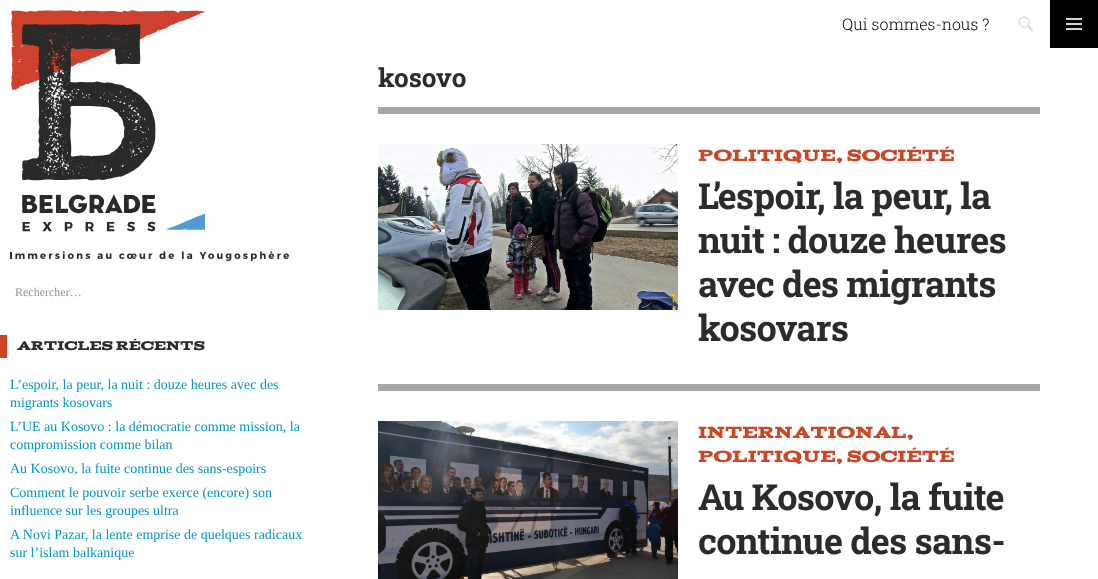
<!DOCTYPE html>
<meta charset="utf-8">
<style>body { margin: 0 } canvas { display: block }</style>
<canvas id="canvas" width="1098" height="579"></canvas>
<script type="module">
  const canvas = document.getElementById("canvas");
  const ctx = canvas.getContext("2d");
  ctx.miterLimit = 4;
  ctx.fontKerning = "normal";
  async function loadImage(src) {
    const img = new Image();
    img.src = src;
    await img.decode();
    return img;
  }

  ctx.fillStyle = "#ffffff";
  ctx.fillRect(0, 0, 1098, 579);
  ctx.drawImage(await loadImage("img1.png"), 11, 10, 194, 222);
  ctx.font = "300 16px Roboto Slab";
  ctx.fillStyle = "#000000";
  ctx.fillText("Qui sommes-nous ?", 842, 30);
  ctx.drawImage(await loadImage("img2.png"), 1018, 16, 16, 16);
  ctx.fillRect(1050, 0, 48, 48);
  ctx.drawImage(await loadImage("img3.png"), 1066, 18, 16, 12);
  ctx.drawImage(await loadImage("img4.png"), 10, 251, 279, 10);
  ctx.font = "12px Liberation Serif";
  ctx.fillStyle = "#939393";
  ctx.fillText("Rechercher…", 15, 296);
  ctx.fillStyle = "#cc4525";
  ctx.fillRect(0, 335, 7, 23);
  ctx.font = "500 14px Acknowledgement";
  ctx.fillStyle = "#2b2b2b";
  ctx.fillText("ARTICLES RÉCENTS", 17, 350);
  ctx.font = "14px Liberation Serif";
  ctx.fillStyle = "#0096c7";
  ctx.fillText("L’espoir, la peur, la nuit : douze heures avec des", 10, 389);
  ctx.fillText("migrants kosovars", 10, 407);
  ctx.fillText("L’UE au Kosovo : la démocratie comme mission, la", 10, 431);
  ctx.fillText("compromission comme bilan", 10, 449);
  ctx.fillText("Au Kosovo, la fuite continue des sans-espoirs", 10, 473);
  ctx.fillText("Comment le pouvoir serbe exerce (encore) son", 10, 497);
  ctx.fillText("influence sur les groupes ultra", 10, 515);
  ctx.fillText("A Novi Pazar, la lente emprise de quelques radicaux", 10, 539);
  ctx.fillText("sur l’islam balkanique", 10, 557);
  ctx.font = "bold 26px Roboto Slab";
  ctx.fillStyle = "#2b2b2b";
  ctx.fillText("kosovo", 378, 87);
  ctx.fillStyle = "#a7a6ab";
  ctx.fillRect(378, 107, 662, 7);
  ctx.drawImage(await loadImage("img5.png"), 378, 144, 300, 166);
  ctx.font = "500 18px Acknowledgement";
  ctx.fillStyle = "#cc4525";
  ctx.fillText("POLITIQUE, SOCIÉTÉ", 698, 161);
  ctx.letterSpacing = "-0.75px";
  ctx.font = "bold 36px Roboto Slab";
  ctx.fillStyle = "#2b2b2b";
  ctx.fillText("L’espoir, la peur, la", 698, 209);
  ctx.fillText("nuit : douze heures", 698, 253);
  ctx.fillText("avec des migrants", 698, 297);
  ctx.fillText("kosovars", 698, 341);
  ctx.fillStyle = "#a7a6ab";
  ctx.fillRect(378, 384, 662, 7);
  ctx.drawImage(await loadImage("img6.png"), 378, 421, 300, 158);
  ctx.letterSpacing = "0px";
  ctx.font = "500 18px Acknowledgement";
  ctx.fillStyle = "#cc4525";
  ctx.fillText("INTERNATIONAL,", 698, 438);
  ctx.fillText("POLITIQUE, SOCIÉTÉ", 698, 462);
  ctx.letterSpacing = "-0.75px";
  ctx.font = "bold 36px Roboto Slab";
  ctx.fillStyle = "#2b2b2b";
  ctx.fillText("Au Kosovo, la fuite", 698, 510);
  ctx.fillText("continue des sans-", 698, 554);
</script>
